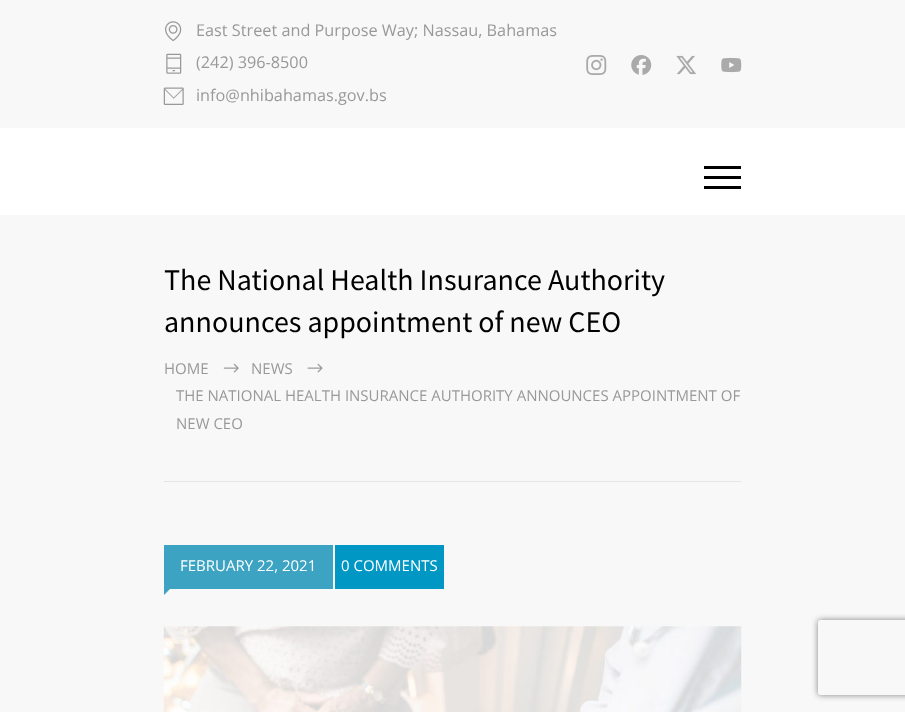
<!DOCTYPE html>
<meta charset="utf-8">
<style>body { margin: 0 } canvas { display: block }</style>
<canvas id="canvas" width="905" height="712"></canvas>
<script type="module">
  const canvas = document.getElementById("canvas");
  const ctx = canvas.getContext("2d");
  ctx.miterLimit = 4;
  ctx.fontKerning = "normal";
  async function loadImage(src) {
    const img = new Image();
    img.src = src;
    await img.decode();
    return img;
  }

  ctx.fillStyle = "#f8f8f8";
  ctx.fillRect(0, 0, 905, 712);
  ctx.drawImage(await loadImage("img1.png"), 165, 21, 17, 21);
  ctx.font = "16.25px Open Sans";
  ctx.fillStyle = "#999999";
  ctx.fillText("East Street and Purpose Way; Nassau, Bahamas", 196, 36);
  ctx.drawImage(await loadImage("img2.png"), 166, 53, 16, 21);
  ctx.fillText("(242) 396-8500", 196, 68);
  ctx.drawImage(await loadImage("img3.png"), 163, 87, 21, 18);
  ctx.fillText("info@nhibahamas.gov.bs", 196, 101);
  ctx.drawImage(await loadImage("img4.png"), 586, 55, 21, 20);
  ctx.drawImage(await loadImage("img5.png"), 631, 55, 21, 20);
  ctx.drawImage(await loadImage("img6.png"), 676, 55, 20, 20);
  ctx.drawImage(await loadImage("img7.png"), 721, 57, 21, 16);
  ctx.fillStyle = "#ffffff";
  ctx.fillRect(0, 128, 905, 87);
  ctx.fillStyle = "#000000";
  ctx.fillRect(704, 166, 37, 3);
  ctx.fillRect(704, 176, 37, 3);
  ctx.fillRect(704, 186, 37, 3);
  ctx.fillStyle = "#e5e5e5";
  ctx.fillRect(164, 481, 577, 1);
  ctx.font = "30px Source Sans Pro";
  ctx.fillStyle = "#000000";
  ctx.fillText("The National Health Insurance Authority", 164, 290);
  ctx.fillText("announces appointment of new CEO", 164, 332);
  ctx.font = "15px Open Sans";
  ctx.fillStyle = "#999999";
  ctx.fillText("HOME", 164, 374);
  ctx.drawImage(await loadImage("img8.png"), 223, 363, 16, 10);
  ctx.fillText("NEWS", 251, 374);
  ctx.drawImage(await loadImage("img9.png"), 307, 363, 16, 10);
  ctx.fillText("THE NATIONAL HEALTH INSURANCE AUTHORITY ANNOUNCES APPOINTMENT OF", 176, 401);
  ctx.fillText("NEW CEO", 176, 429);
  ctx.fillStyle = "#3ca3c2";
  ctx.fillRect(164, 545, 169, 44);
  ctx.fillStyle = "#ffffff";
  ctx.fillText("FEBRUARY 22, 2021", 180, 571);
  ctx.fillStyle = "#3ca3c2";
  ctx.beginPath();
  ctx.moveTo(164, 589);
  ctx.lineTo(170, 589);
  ctx.lineTo(164, 595);
  ctx.closePath();
  ctx.fill();
  ctx.fillStyle = "#0097c5";
  ctx.fillRect(335, 545, 109, 44);
  ctx.fillStyle = "#ffffff";
  ctx.fillText("0 COMMENTS", 341, 571);
  ctx.drawImage(await loadImage("img10.png"), 163, 626, 579, 86);
  ctx.save();
  ctx.beginPath();
  ctx.moveTo(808, 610);
  ctx.lineTo(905, 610);
  ctx.lineTo(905, 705);
  ctx.lineTo(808, 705);
  ctx.closePath();
  ctx.moveTo(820.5, 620);
  ctx.lineTo(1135.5, 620);
  ctx.bezierCurveTo(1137, 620, 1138, 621, 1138, 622.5);
  ctx.lineTo(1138, 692.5);
  ctx.bezierCurveTo(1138, 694, 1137, 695, 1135.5, 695);
  ctx.lineTo(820.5, 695);
  ctx.bezierCurveTo(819, 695, 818, 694, 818, 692.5);
  ctx.lineTo(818, 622.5);
  ctx.bezierCurveTo(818, 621, 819, 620, 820.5, 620);
  ctx.closePath();
  ctx.clip("evenodd");
  ctx.fillStyle = "#808080";
  ctx.filter = "blur(3px)";
  ctx.beginPath();
  ctx.roundRect(818, 620, 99, 75, 2.5);
  ctx.fill();
  ctx.filter = "none";
  ctx.restore();
</script>
